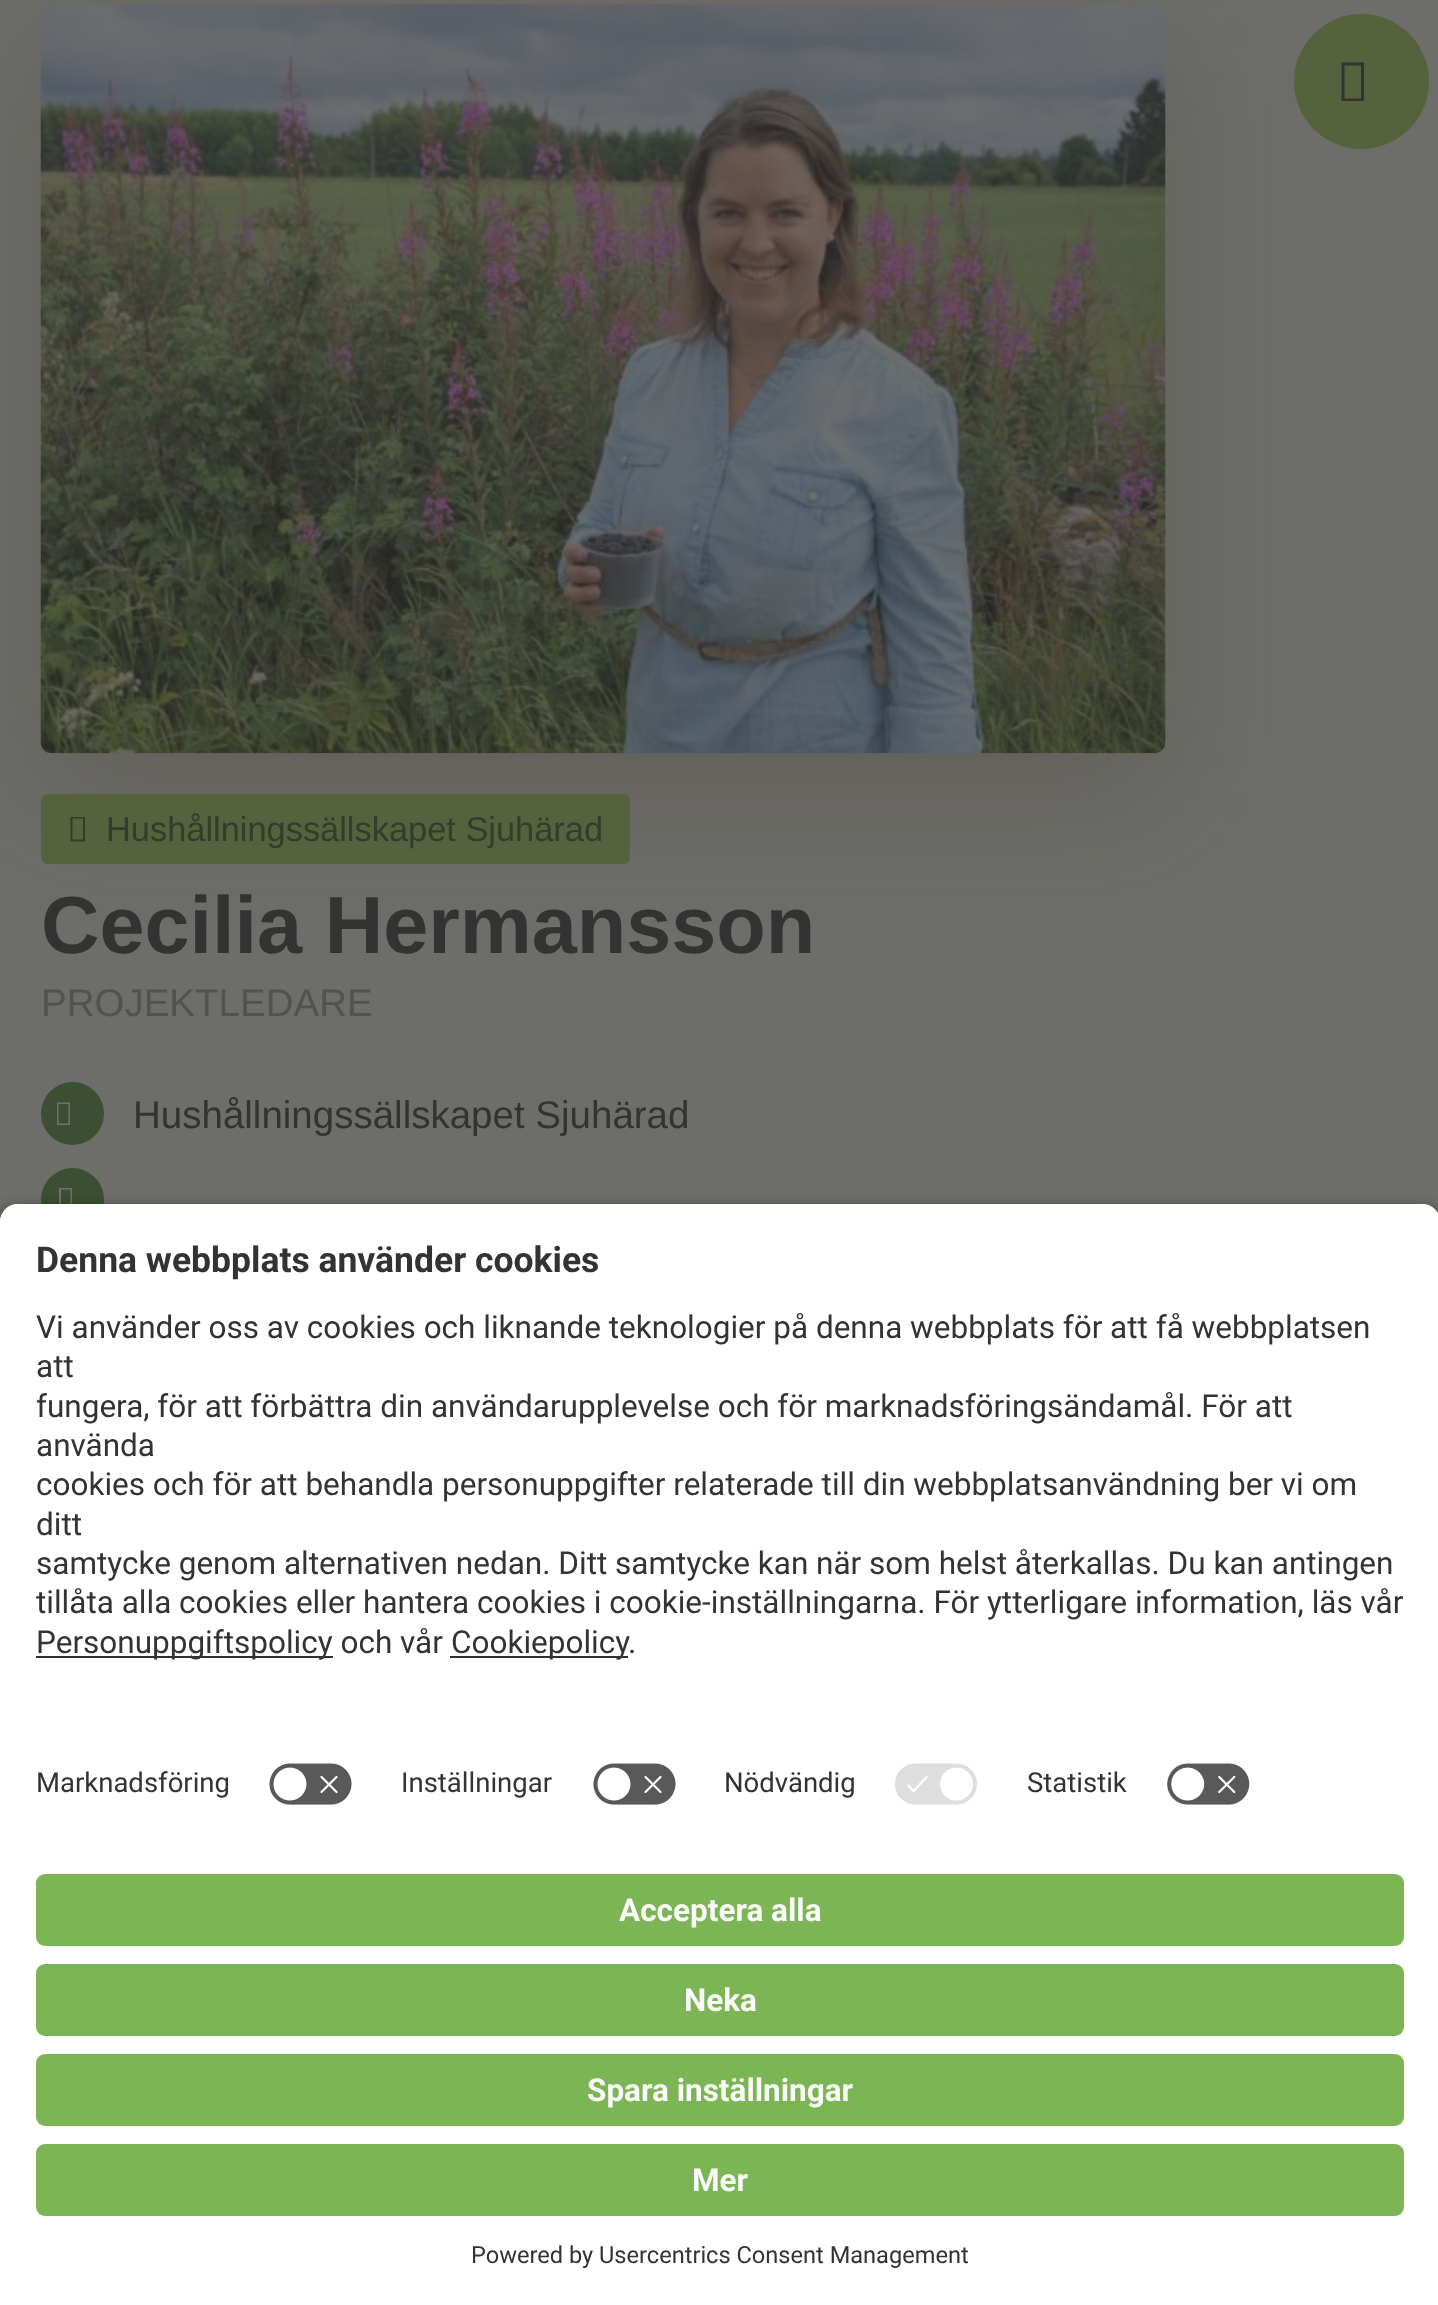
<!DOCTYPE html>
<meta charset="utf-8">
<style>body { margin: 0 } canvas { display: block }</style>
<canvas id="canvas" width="1438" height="2305"></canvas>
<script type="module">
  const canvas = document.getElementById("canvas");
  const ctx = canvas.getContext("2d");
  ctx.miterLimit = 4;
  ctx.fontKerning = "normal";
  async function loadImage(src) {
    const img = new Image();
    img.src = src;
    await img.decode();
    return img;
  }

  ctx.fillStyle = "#6d6d69";
  ctx.fillRect(0, 0, 1438, 2305);
  ctx.fillStyle = "rgba(62, 54, 42, 0.25)";
  ctx.filter = "blur(61px)";
  ctx.beginPath();
  ctx.roundRect(41, 45, 1125, 749, 11);
  ctx.fill();
  ctx.filter = "none";
  ctx.fillStyle = "#55623e";
  ctx.beginPath();
  ctx.arc(1361.5, 81.5, 67.5, 0, Math.PI * 2);
  ctx.fill();
  ctx.fillStyle = "#333333";
  ctx.beginPath();
  ctx.moveTo(1341.5, 101);
  ctx.lineTo(1341.5, 62.5);
  ctx.lineTo(1364, 62.5);
  ctx.lineTo(1364, 101);
  ctx.closePath();
  ctx.moveTo(1344.5, 98.5);
  ctx.lineTo(1361, 98.5);
  ctx.lineTo(1361, 65.5);
  ctx.lineTo(1344.5, 65.5);
  ctx.closePath();
  ctx.fill();
  ctx.drawImage(await loadImage("img1.png"), 40, 4, 1126, 750);
  ctx.fillStyle = "#55623e";
  ctx.beginPath();
  ctx.roundRect(41, 794, 589, 70, 7);
  ctx.fill();
  ctx.fillStyle = "#323e2c";
  ctx.beginPath();
  ctx.moveTo(70.5, 841.5);
  ctx.lineTo(70.5, 817);
  ctx.lineTo(85, 817);
  ctx.lineTo(85, 841.5);
  ctx.closePath();
  ctx.moveTo(72.5, 839.5);
  ctx.lineTo(83, 839.5);
  ctx.lineTo(83, 818.5);
  ctx.lineTo(72.5, 818.5);
  ctx.closePath();
  ctx.fill();
  ctx.font = "34.4px Liberation Sans";
  ctx.fillText("Hushållningssällskapet Sjuhärad", 106, 841);
  ctx.font = "bold 81px Liberation Sans";
  ctx.fillStyle = "#333333";
  ctx.fillText("Cecilia Hermansson", 41, 953);
  ctx.font = "38.5px Liberation Sans";
  ctx.fillStyle = "#525252";
  ctx.fillText("PROJEKTLEDARE", 41, 1016);
  ctx.fillStyle = "#3c4f32";
  ctx.beginPath();
  ctx.arc(72.5, 1113.5, 31.5, 0, Math.PI * 2);
  ctx.fill();
  ctx.fillStyle = "#707070";
  ctx.beginPath();
  ctx.moveTo(57, 1125);
  ctx.lineTo(57, 1102.5);
  ctx.lineTo(70, 1102.5);
  ctx.lineTo(70, 1125);
  ctx.closePath();
  ctx.moveTo(58.5, 1123.5);
  ctx.lineTo(68.5, 1123.5);
  ctx.lineTo(68.5, 1104);
  ctx.lineTo(58.5, 1104);
  ctx.closePath();
  ctx.fill();
  ctx.fillStyle = "#333333";
  ctx.fillText("Hushållningssällskapet Sjuhärad", 133, 1128);
  ctx.fillStyle = "#3c4f32";
  ctx.beginPath();
  ctx.arc(72.5, 1199.5, 31.5, 0, Math.PI * 2);
  ctx.fill();
  ctx.fillStyle = "#707070";
  ctx.beginPath();
  ctx.moveTo(59, 1210.5);
  ctx.lineTo(59, 1188);
  ctx.lineTo(72, 1188);
  ctx.lineTo(72, 1210.5);
  ctx.closePath();
  ctx.moveTo(61, 1209);
  ctx.lineTo(70.5, 1209);
  ctx.lineTo(70.5, 1189.5);
  ctx.lineTo(61, 1189.5);
  ctx.closePath();
  ctx.fill();
  ctx.fillStyle = "rgba(0, 0, 0, 0.8)";
  ctx.filter = "blur(8px)";
  ctx.beginPath();
  ctx.roundRect(0, 1211, 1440, 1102, 18);
  ctx.fill();
  ctx.filter = "none";
  ctx.fillStyle = "#ffffff";
  ctx.beginPath();
  ctx.moveTo(18, 1204);
  ctx.lineTo(1422, 1204);
  ctx.bezierCurveTo(1432, 1204, 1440, 1212, 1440, 1222);
  ctx.lineTo(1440, 1847);
  ctx.lineTo(0, 1847);
  ctx.lineTo(0, 1222);
  ctx.bezierCurveTo(0, 1212, 8, 1204, 18, 1204);
  ctx.closePath();
  ctx.fill();
  ctx.beginPath();
  ctx.moveTo(18, 1204);
  ctx.lineTo(1422, 1204);
  ctx.bezierCurveTo(1432, 1204, 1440, 1212, 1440, 1222);
  ctx.lineTo(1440, 1748);
  ctx.lineTo(0, 1748);
  ctx.lineTo(0, 1222);
  ctx.bezierCurveTo(0, 1212, 8, 1204, 18, 1204);
  ctx.closePath();
  ctx.fill();
  ctx.font = "bold 35.5px Roboto";
  ctx.fillStyle = "#333333";
  ctx.fillText("Denna webbplats använder cookies", 36, 1272);
  ctx.font = "31.5px Roboto";
  ctx.fillText("Vi använder oss av cookies och liknande teknologier på denna webbplats för att få webbplatsen", 36, 1338);
  ctx.fillText("att", 36, 1377);
  ctx.fillText("fungera, för att förbättra din användarupplevelse och för marknadsföringsändamål. För att", 36, 1417);
  ctx.fillText("använda", 36, 1456);
  ctx.fillText("cookies och för att behandla personuppgifter relaterade till din webbplatsanvändning ber vi om", 36, 1495);
  ctx.fillText("ditt", 36, 1535);
  ctx.fillText("samtycke genom alternativen nedan. Ditt samtycke kan när som helst återkallas. Du kan antingen", 36, 1574);
  ctx.fillText("tillåta alla cookies eller hantera cookies i cookie-inställningarna. För ytterligare information, läs vår", 36, 1613);
  ctx.fillStyle = "#303030";
  ctx.fillRect(36, 1656, 297, 2);
  ctx.fillStyle = "#333333";
  ctx.fillText("Personuppgiftspolicy och vår", 36, 1653);
  ctx.fillStyle = "#303030";
  ctx.fillRect(450, 1656, 178, 2);
  ctx.fillStyle = "#333333";
  ctx.fillText("Cookiepolicy", 451, 1653);
  ctx.fillText(".", 628, 1653);
  ctx.font = "27.5px Roboto";
  ctx.fillText("Marknadsföring", 36, 1792);
  ctx.drawImage(await loadImage("img2.png"), 269, 1763, 83, 42);
  ctx.fillText("Inställningar", 401, 1792);
  ctx.drawImage(await loadImage("img2.png"), 593, 1763, 83, 42);
  ctx.fillText("Nödvändig", 724, 1792);
  ctx.drawImage(await loadImage("img3.png"), 895, 1763, 82, 42);
  ctx.fillText("Statistik", 1027, 1792);
  ctx.drawImage(await loadImage("img4.png"), 1167, 1763, 83, 42);
  ctx.fillStyle = "#ffffff";
  ctx.fillRect(0, 1847, 1438, 458);
  ctx.fillStyle = "#7cb553";
  ctx.beginPath();
  ctx.roundRect(36, 1874, 1368, 72, 9);
  ctx.fill();
  ctx.font = "bold 31.5px Roboto";
  ctx.fillStyle = "#fafafa";
  ctx.fillText("Acceptera alla", 619, 1921);
  ctx.fillStyle = "#7cb553";
  ctx.beginPath();
  ctx.roundRect(36, 1964, 1368, 72, 9);
  ctx.fill();
  ctx.fillStyle = "#fafafa";
  ctx.fillText("Neka", 684, 2011);
  ctx.fillStyle = "#7cb553";
  ctx.beginPath();
  ctx.roundRect(36, 2054, 1368, 72, 9);
  ctx.fill();
  ctx.fillStyle = "#fafafa";
  ctx.fillText("Spara inställningar", 587, 2101);
  ctx.fillStyle = "#7cb553";
  ctx.beginPath();
  ctx.roundRect(36, 2144, 1368, 72, 9);
  ctx.fill();
  ctx.fillStyle = "#fafafa";
  ctx.fillText("Mer", 692, 2191);
  ctx.font = "23.6px Roboto";
  ctx.fillStyle = "#333333";
  ctx.fillText("Powered by Usercentrics Consent Management", 471, 2263);
</script>
